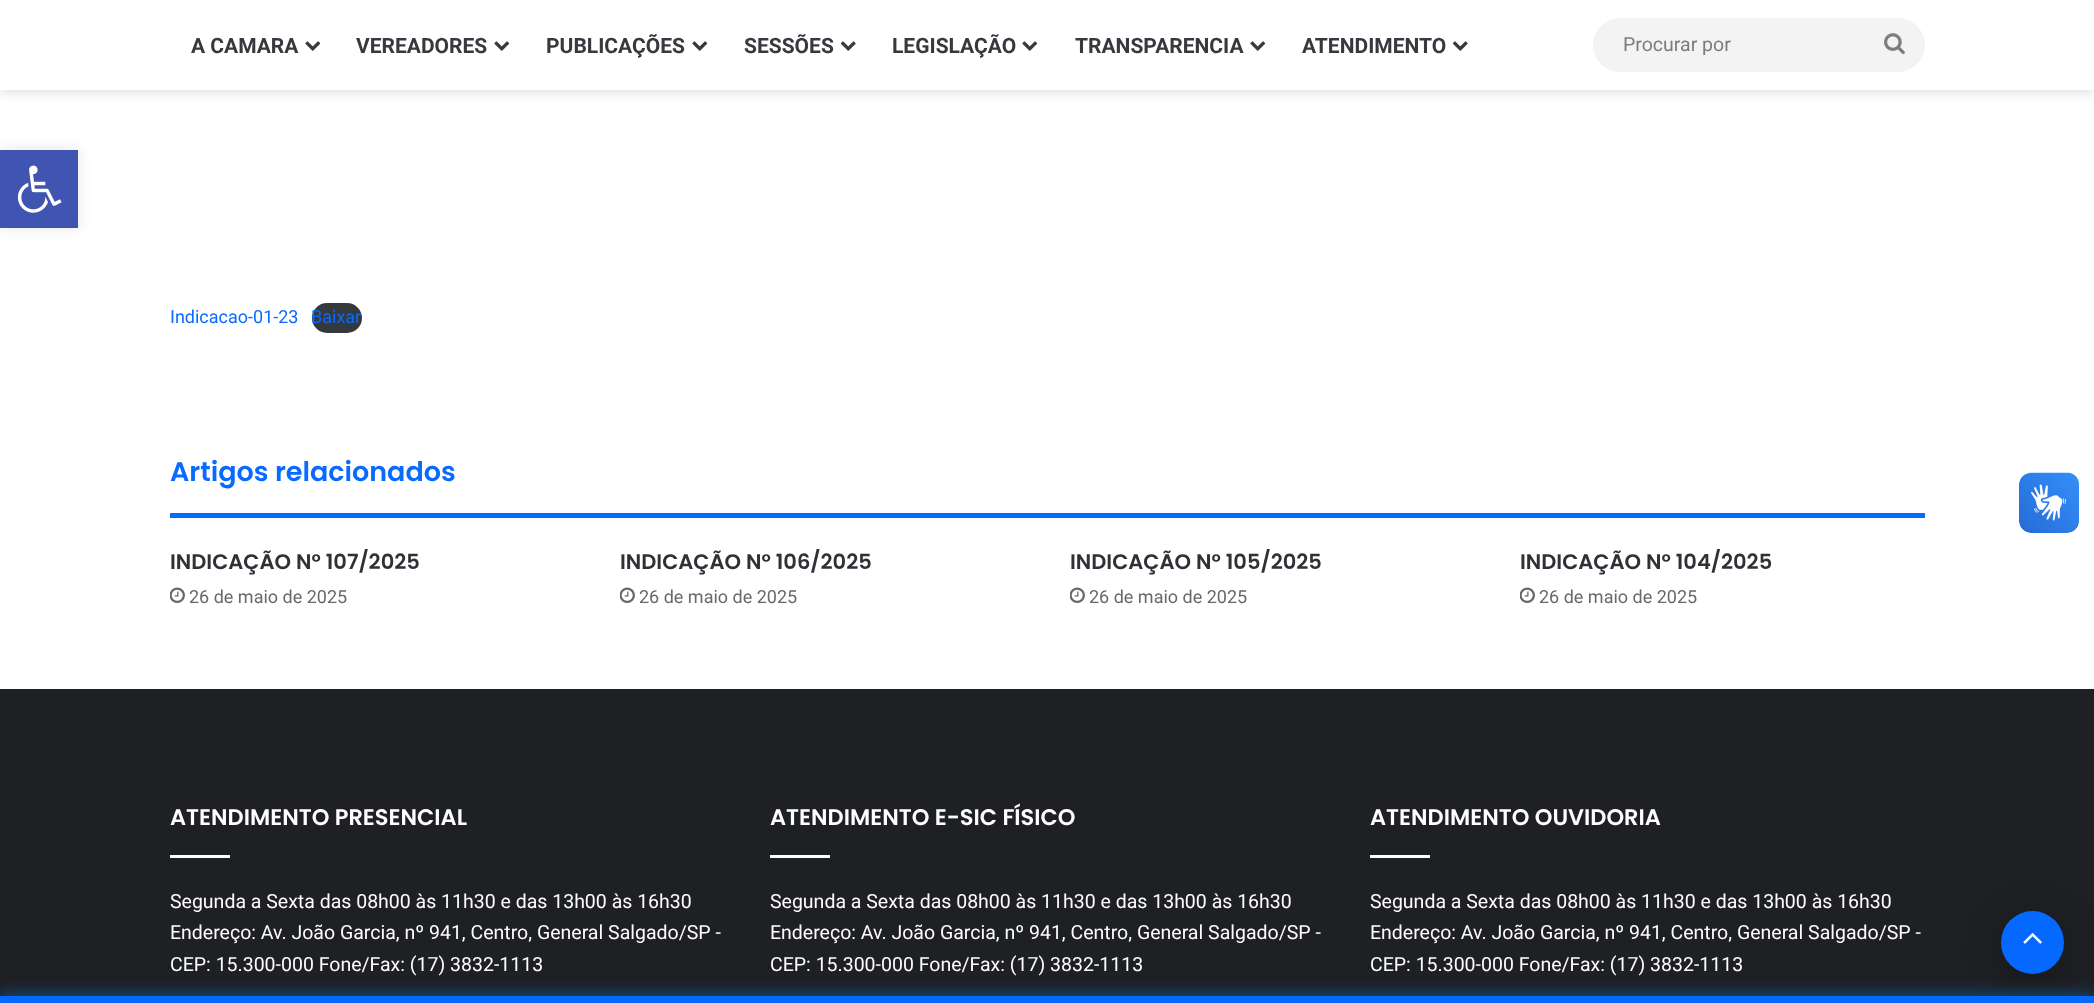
<!DOCTYPE html>
<meta charset="utf-8">
<style>body { margin: 0 } canvas { display: block }</style>
<canvas id="canvas" width="2094" height="1003"></canvas>
<script type="module">
  const canvas = document.getElementById("canvas");
  const ctx = canvas.getContext("2d");
  ctx.miterLimit = 4;
  ctx.fontKerning = "normal";
  async function loadImage(src) {
    const img = new Image();
    img.src = src;
    await img.decode();
    return img;
  }

  ctx.fillStyle = "#ffffff";
  ctx.fillRect(0, 0, 2094, 1003);
  ctx.fillStyle = "rgba(0, 0, 0, 0.1)";
  ctx.filter = "blur(7.5px)";
  ctx.beginPath();
  ctx.rect(0, 150, 78, 78);
  ctx.fill();
  ctx.filter = "none";
  ctx.fillStyle = "#4054b2";
  ctx.fillRect(0, 150, 78, 78);
  ctx.drawImage(await loadImage("img1.png"), 17, 165, 45, 48);
  ctx.save();
  ctx.beginPath();
  ctx.rect(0, 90, 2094, 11);
  ctx.clip();
  ctx.fillStyle = "rgba(99, 99, 99, 0.2)";
  ctx.filter = "blur(6px)";
  ctx.beginPath();
  ctx.rect(0, 3, 2094, 90);
  ctx.fill();
  ctx.filter = "none";
  ctx.restore();
  ctx.font = "bold 21px Roboto";
  ctx.fillStyle = "#37393e";
  ctx.fillText("A CAMARA", 191, 53);
  ctx.drawImage(await loadImage("img2.png"), 305, 41, 16, 10);
  ctx.fillText("VEREADORES", 356, 53);
  ctx.drawImage(await loadImage("img2.png"), 494, 41, 16, 10);
  ctx.fillText("PUBLICAÇÕES", 546, 53);
  ctx.drawImage(await loadImage("img2.png"), 692, 41, 16, 10);
  ctx.fillText("SESSÕES", 744, 53);
  ctx.drawImage(await loadImage("img3.png"), 840, 41, 16, 10);
  ctx.fillText("LEGISLAÇÃO", 892, 53);
  ctx.drawImage(await loadImage("img2.png"), 1022, 41, 16, 10);
  ctx.fillText("TRANSPARENCIA", 1075, 53);
  ctx.drawImage(await loadImage("img2.png"), 1250, 41, 16, 10);
  ctx.fillText("ATENDIMENTO", 1302, 53);
  ctx.drawImage(await loadImage("img3.png"), 1452, 41, 16, 10);
  ctx.fillStyle = "#f3f3f3";
  ctx.beginPath();
  ctx.roundRect(1593, 18, 332, 54, 27);
  ctx.fill();
  ctx.font = "19.5px Roboto";
  ctx.fillStyle = "#7c7c7c";
  ctx.fillText("Procurar por", 1623, 51);
  ctx.drawImage(await loadImage("img4.png"), 1884, 33, 21, 22);
  ctx.font = "18px Roboto";
  ctx.fillStyle = "#086bff";
  ctx.fillText("Indicacao-01-23", 170, 323);
  ctx.fillStyle = "#34393e";
  ctx.beginPath();
  ctx.roundRect(312, 303, 50, 30, 15);
  ctx.fill();
  ctx.fillStyle = "#086bff";
  ctx.fillText("Baixar", 311, 323);
  ctx.fillRect(170, 513, 1755, 5);
  ctx.font = "600 27px Poppins";
  ctx.fillText("Artigos relacionados", 170, 481);
  ctx.font = "600 21px Poppins";
  ctx.fillStyle = "#2e3136";
  ctx.fillText("INDICAÇÃO N° 107/2025", 170, 569);
  ctx.drawImage(await loadImage("img5.png"), 170, 587, 15, 16);
  ctx.font = "18px Roboto";
  ctx.fillStyle = "#686868";
  ctx.fillText("26 de maio de 2025", 189, 603);
  ctx.font = "600 21px Poppins";
  ctx.fillStyle = "#2e3136";
  ctx.fillText("INDICAÇÃO N° 106/2025", 620, 569);
  ctx.drawImage(await loadImage("img5.png"), 620, 587, 15, 16);
  ctx.font = "18px Roboto";
  ctx.fillStyle = "#686868";
  ctx.fillText("26 de maio de 2025", 639, 603);
  ctx.font = "600 21px Poppins";
  ctx.fillStyle = "#2e3136";
  ctx.fillText("INDICAÇÃO N° 105/2025", 1070, 569);
  ctx.drawImage(await loadImage("img5.png"), 1070, 587, 15, 16);
  ctx.font = "18px Roboto";
  ctx.fillStyle = "#686868";
  ctx.fillText("26 de maio de 2025", 1089, 603);
  ctx.font = "600 21px Poppins";
  ctx.fillStyle = "#2e3136";
  ctx.fillText("INDICAÇÃO N° 104/2025", 1520, 569);
  ctx.drawImage(await loadImage("img5.png"), 1520, 587, 15, 16);
  ctx.font = "18px Roboto";
  ctx.fillStyle = "#686868";
  ctx.fillText("26 de maio de 2025", 1539, 603);
  ctx.fillStyle = "#1f2024";
  ctx.fillRect(0, 689, 2094, 307);
  ctx.drawImage(await loadImage("img6.png"), 2019, 472, 60, 61);
  ctx.drawImage(await loadImage("img7.png"), 2019, 473, 60, 60);
  ctx.font = "600 22.5px Poppins";
  ctx.fillStyle = "#fdfdfd";
  ctx.fillText("ATENDIMENTO PRESENCIAL", 170, 825);
  ctx.fillRect(170, 855, 60, 3);
  ctx.font = "19.5px Roboto";
  ctx.fillText("Segunda a Sexta das 08h00 às 11h30 e das 13h00 às 16h30", 170, 908);
  ctx.fillText("Endereço: Av. João Garcia, nº 941, Centro, General Salgado/SP -", 170, 939);
  ctx.fillText("CEP: 15.300-000 Fone/Fax: (17) 3832-1113", 170, 971);
  ctx.font = "600 22.5px Poppins";
  ctx.fillText("ATENDIMENTO E-SIC FÍSICO", 770, 825);
  ctx.fillRect(770, 855, 60, 3);
  ctx.font = "19.5px Roboto";
  ctx.fillText("Segunda a Sexta das 08h00 às 11h30 e das 13h00 às 16h30", 770, 908);
  ctx.fillText("Endereço: Av. João Garcia, nº 941, Centro, General Salgado/SP -", 770, 939);
  ctx.fillText("CEP: 15.300-000 Fone/Fax: (17) 3832-1113", 770, 971);
  ctx.font = "600 22.5px Poppins";
  ctx.fillText("ATENDIMENTO OUVIDORIA", 1370, 825);
  ctx.fillRect(1370, 855, 60, 3);
  ctx.font = "19.5px Roboto";
  ctx.fillText("Segunda a Sexta das 08h00 às 11h30 e das 13h00 às 16h30", 1370, 908);
  ctx.fillText("Endereço: Av. João Garcia, nº 941, Centro, General Salgado/SP -", 1370, 939);
  ctx.fillText("CEP: 15.300-000 Fone/Fax: (17) 3832-1113", 1370, 971);
  ctx.fillStyle = "rgba(0, 0, 0, 0.3)";
  ctx.filter = "blur(19px)";
  ctx.beginPath();
  ctx.roundRect(2001, 918, 63, 63, 31.5);
  ctx.fill();
  ctx.filter = "none";
  ctx.fillStyle = "#0669ff";
  ctx.beginPath();
  ctx.arc(2032.5, 942.5, 31.5, 0, Math.PI * 2);
  ctx.fill();
  ctx.drawImage(await loadImage("img8.png"), 2023, 933, 19, 11);
  ctx.fillStyle = "rgba(0, 136, 255, 0.7)";
  ctx.filter = "blur(7.5px)";
  ctx.beginPath();
  ctx.rect(0, 996, 2094, 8);
  ctx.fill();
  ctx.filter = "none";
  ctx.fillStyle = "#0669ff";
  ctx.fillRect(0, 996, 2094, 7);
</script>
